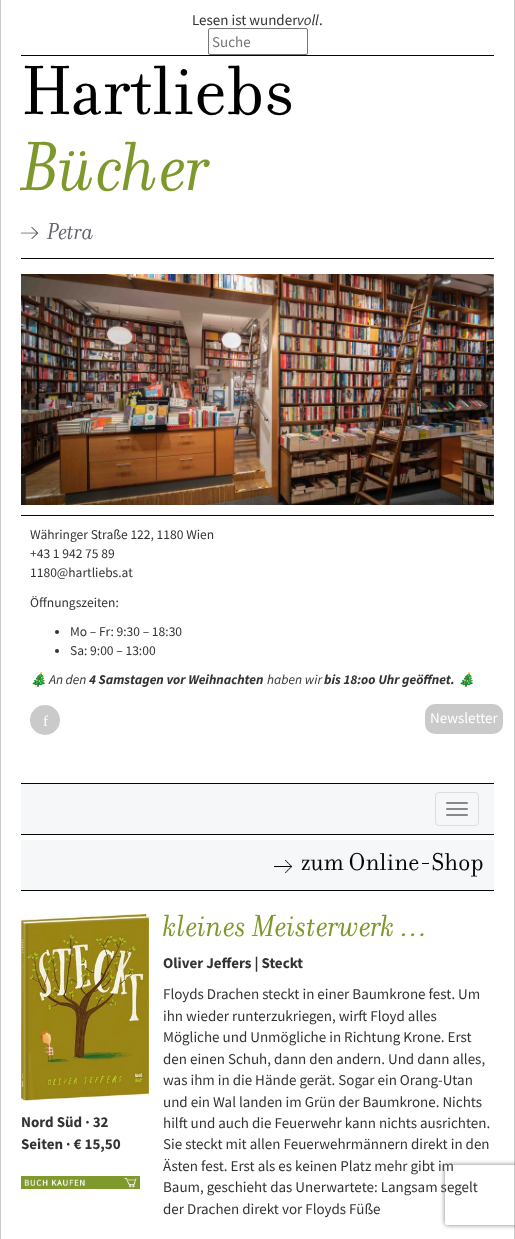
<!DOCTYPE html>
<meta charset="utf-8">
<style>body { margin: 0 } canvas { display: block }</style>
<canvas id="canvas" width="515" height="1239"></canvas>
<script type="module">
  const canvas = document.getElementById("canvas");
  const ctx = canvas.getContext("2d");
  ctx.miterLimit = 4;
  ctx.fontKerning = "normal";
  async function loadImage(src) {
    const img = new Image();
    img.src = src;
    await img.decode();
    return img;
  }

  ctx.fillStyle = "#ffffff";
  ctx.fillRect(0, 0, 515, 1239);
  ctx.fillStyle = "#cbcaca";
  ctx.fillRect(514, 0, 1, 1239);
  ctx.fillRect(0, 0, 1, 1239);
  ctx.fillStyle = "#040707";
  ctx.fillRect(21, 55, 473, 1);
  ctx.font = "15px Source Sans Pro";
  ctx.fillStyle = "#333333";
  ctx.fillText("Lesen ist wunder", 192, 25);
  ctx.font = "italic 15px Source Sans Pro";
  ctx.fillText("voll", 297, 25);
  ctx.font = "15px Source Sans Pro";
  ctx.fillText(".", 319, 25);
  ctx.beginPath();
  ctx.roundRect(208.5, 28.5, 99, 26, 1.5);
  ctx.strokeStyle = "#767676";
  ctx.stroke();
  ctx.fillStyle = "#757575";
  ctx.fillText("Suche", 212, 47);
  ctx.font = "75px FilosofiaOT";
  ctx.fillStyle = "#000000";
  ctx.fillText("Hartliebs", 21, 114);
  ctx.font = "75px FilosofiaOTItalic";
  ctx.fillStyle = "#7e992b";
  ctx.fillText("Bücher", 21, 190);
  ctx.drawImage(await loadImage("img1.png"), 21, 227, 17, 12);
  ctx.font = "25px FilosofiaOTItalic";
  ctx.fillStyle = "#63636c";
  ctx.fillText("Petra", 47, 239);
  ctx.drawImage(await loadImage("img2.png"), 493, 289, 1, 216);
  ctx.fillStyle = "#040707";
  ctx.fillRect(21, 258, 473, 1);
  ctx.drawImage(await loadImage("img3.png"), 21, 274, 473, 231);
  ctx.fillRect(21, 515, 473, 1);
  ctx.font = "13.5px Source Sans Pro";
  ctx.fillStyle = "#333333";
  ctx.fillText("Währinger Straße 122, 1180 Wien", 30, 539);
  ctx.fillText("+43 1 942 75 89", 30, 558);
  ctx.fillText("1180@hartliebs.at", 30, 577);
  ctx.fillText("Öffnungszeiten:", 30, 607);
  ctx.beginPath();
  ctx.arc(57, 632, 2, 0, Math.PI * 2);
  ctx.fill();
  ctx.fillText("Mo – Fr: 9:30 – 18:30", 70, 636);
  ctx.beginPath();
  ctx.arc(57, 651, 2, 0, Math.PI * 2);
  ctx.fill();
  ctx.fillText("Sa: 9:00 – 13:00", 70, 655);
  ctx.font = "italic bold 13.5px Noto Color Emoji";
  ctx.fillText("🎄", 30, 684);
  ctx.font = "italic 13.5px Source Sans Pro";
  ctx.fillText("An den", 49, 684);
  ctx.font = "italic bold 13.5px Source Sans Pro";
  ctx.fillText("4 Samstagen vor Weihnachten", 89, 684);
  ctx.font = "italic 13.5px Source Sans Pro";
  ctx.fillText("haben wir", 267, 684);
  ctx.font = "italic bold 13.5px Source Sans Pro";
  ctx.fillText("bis 18:oo Uhr geöffnet.", 324, 684);
  ctx.font = "italic bold 13.5px Noto Color Emoji";
  ctx.fillText("🎄", 458, 684);
  ctx.fillStyle = "#cbcaca";
  ctx.beginPath();
  ctx.arc(45, 720, 15, 0, Math.PI * 2);
  ctx.fill();
  ctx.font = "15px Liberation Serif";
  ctx.fillStyle = "#ffffff";
  ctx.fillText("f", 43, 726);
  ctx.fillStyle = "#cbcaca";
  ctx.beginPath();
  ctx.roundRect(425, 704, 78, 30, 10);
  ctx.fill();
  ctx.font = "15px Source Sans Pro";
  ctx.fillStyle = "#ffffff";
  ctx.fillText("Newsletter", 430, 723);
  ctx.fillStyle = "#040707";
  ctx.fillRect(21, 783, 473, 1);
  ctx.fillStyle = "#f6f7f8";
  ctx.fillRect(21, 784, 473, 50);
  ctx.fillStyle = "#040707";
  ctx.fillRect(21, 834, 473, 1);
  ctx.beginPath();
  ctx.roundRect(435.5, 792.5, 43, 33, 3.5);
  ctx.strokeStyle = "#dddddd";
  ctx.stroke();
  ctx.fillStyle = "#888888";
  ctx.beginPath();
  ctx.roundRect(446, 802, 22, 2, 1);
  ctx.fill();
  ctx.beginPath();
  ctx.roundRect(446, 808, 22, 2, 1);
  ctx.fill();
  ctx.beginPath();
  ctx.roundRect(446, 814, 22, 2, 1);
  ctx.fill();
  ctx.fillStyle = "#f6f7f8";
  ctx.fillRect(21, 840, 473, 50);
  ctx.fillStyle = "#040707";
  ctx.fillRect(21, 890, 473, 1);
  ctx.drawImage(await loadImage("img4.png"), 274, 860, 18, 13);
  ctx.font = "26.25px FilosofiaOT";
  ctx.fillText("zum Online-Shop", 301, 870);
  ctx.drawImage(await loadImage("img5.png"), 21, 914, 128, 187);
  ctx.font = "bold 15px Source Sans Pro";
  ctx.fillStyle = "#333333";
  ctx.fillText("Nord Süd · 32", 21, 1127);
  ctx.fillText("Seiten · € 15,50", 21, 1149);
  ctx.drawImage(await loadImage("img6.png"), 21, 1176, 119, 13);
  ctx.font = "33px FilosofiaOTItalic";
  ctx.fillStyle = "#7e992b";
  ctx.fillText("kleines Meisterwerk …", 163, 936);
  ctx.font = "bold 15px Source Sans Pro";
  ctx.fillStyle = "#333333";
  ctx.fillText("Oliver Jeffers | Steckt", 163, 968);
  ctx.font = "15px Source Sans Pro";
  ctx.fillText("Floyds Drachen steckt in einer Baumkrone fest. Um", 163, 999);
  ctx.fillText("ihn wieder runterzukriegen, wirft Floyd alles", 163, 1021);
  ctx.fillText("Mögliche und Unmögliche in Richtung Krone. Erst", 163, 1042);
  ctx.fillText("den einen Schuh, dann den andern. Und dann alles,", 163, 1064);
  ctx.fillText("was ihm in die Hände gerät. Sogar ein Orang-Utan", 163, 1085);
  ctx.fillText("und ein Wal landen im Grün der Baumkrone. Nichts", 163, 1107);
  ctx.fillText("hilft und auch die Feuerwehr kann nichts ausrichten.", 163, 1128);
  ctx.fillText("Sie steckt mit allen Feuerwehrmännern direkt in den", 163, 1149);
  ctx.fillText("Ästen fest. Erst als es keinen Platz mehr gibt im", 163, 1171);
  ctx.fillText("Baum, geschieht das Unerwartete: Langsam segelt", 163, 1192);
  ctx.fillText("der Drachen direkt vor Floyds Füße", 163, 1214);
  ctx.save();
  ctx.beginPath();
  ctx.moveTo(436, 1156);
  ctx.lineTo(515, 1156);
  ctx.lineTo(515, 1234);
  ctx.lineTo(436, 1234);
  ctx.closePath();
  ctx.moveTo(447, 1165);
  ctx.lineTo(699, 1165);
  ctx.bezierCurveTo(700, 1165, 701, 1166, 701, 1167);
  ctx.lineTo(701, 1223);
  ctx.bezierCurveTo(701, 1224, 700, 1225, 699, 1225);
  ctx.lineTo(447, 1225);
  ctx.bezierCurveTo(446, 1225, 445, 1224, 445, 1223);
  ctx.lineTo(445, 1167);
  ctx.bezierCurveTo(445, 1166, 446, 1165, 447, 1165);
  ctx.closePath();
  ctx.clip("evenodd");
  ctx.fillStyle = "#808080";
  ctx.filter = "blur(2.5px)";
  ctx.beginPath();
  ctx.roundRect(445, 1165, 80, 60, 2);
  ctx.fill();
  ctx.filter = "none";
  ctx.restore();
</script>
